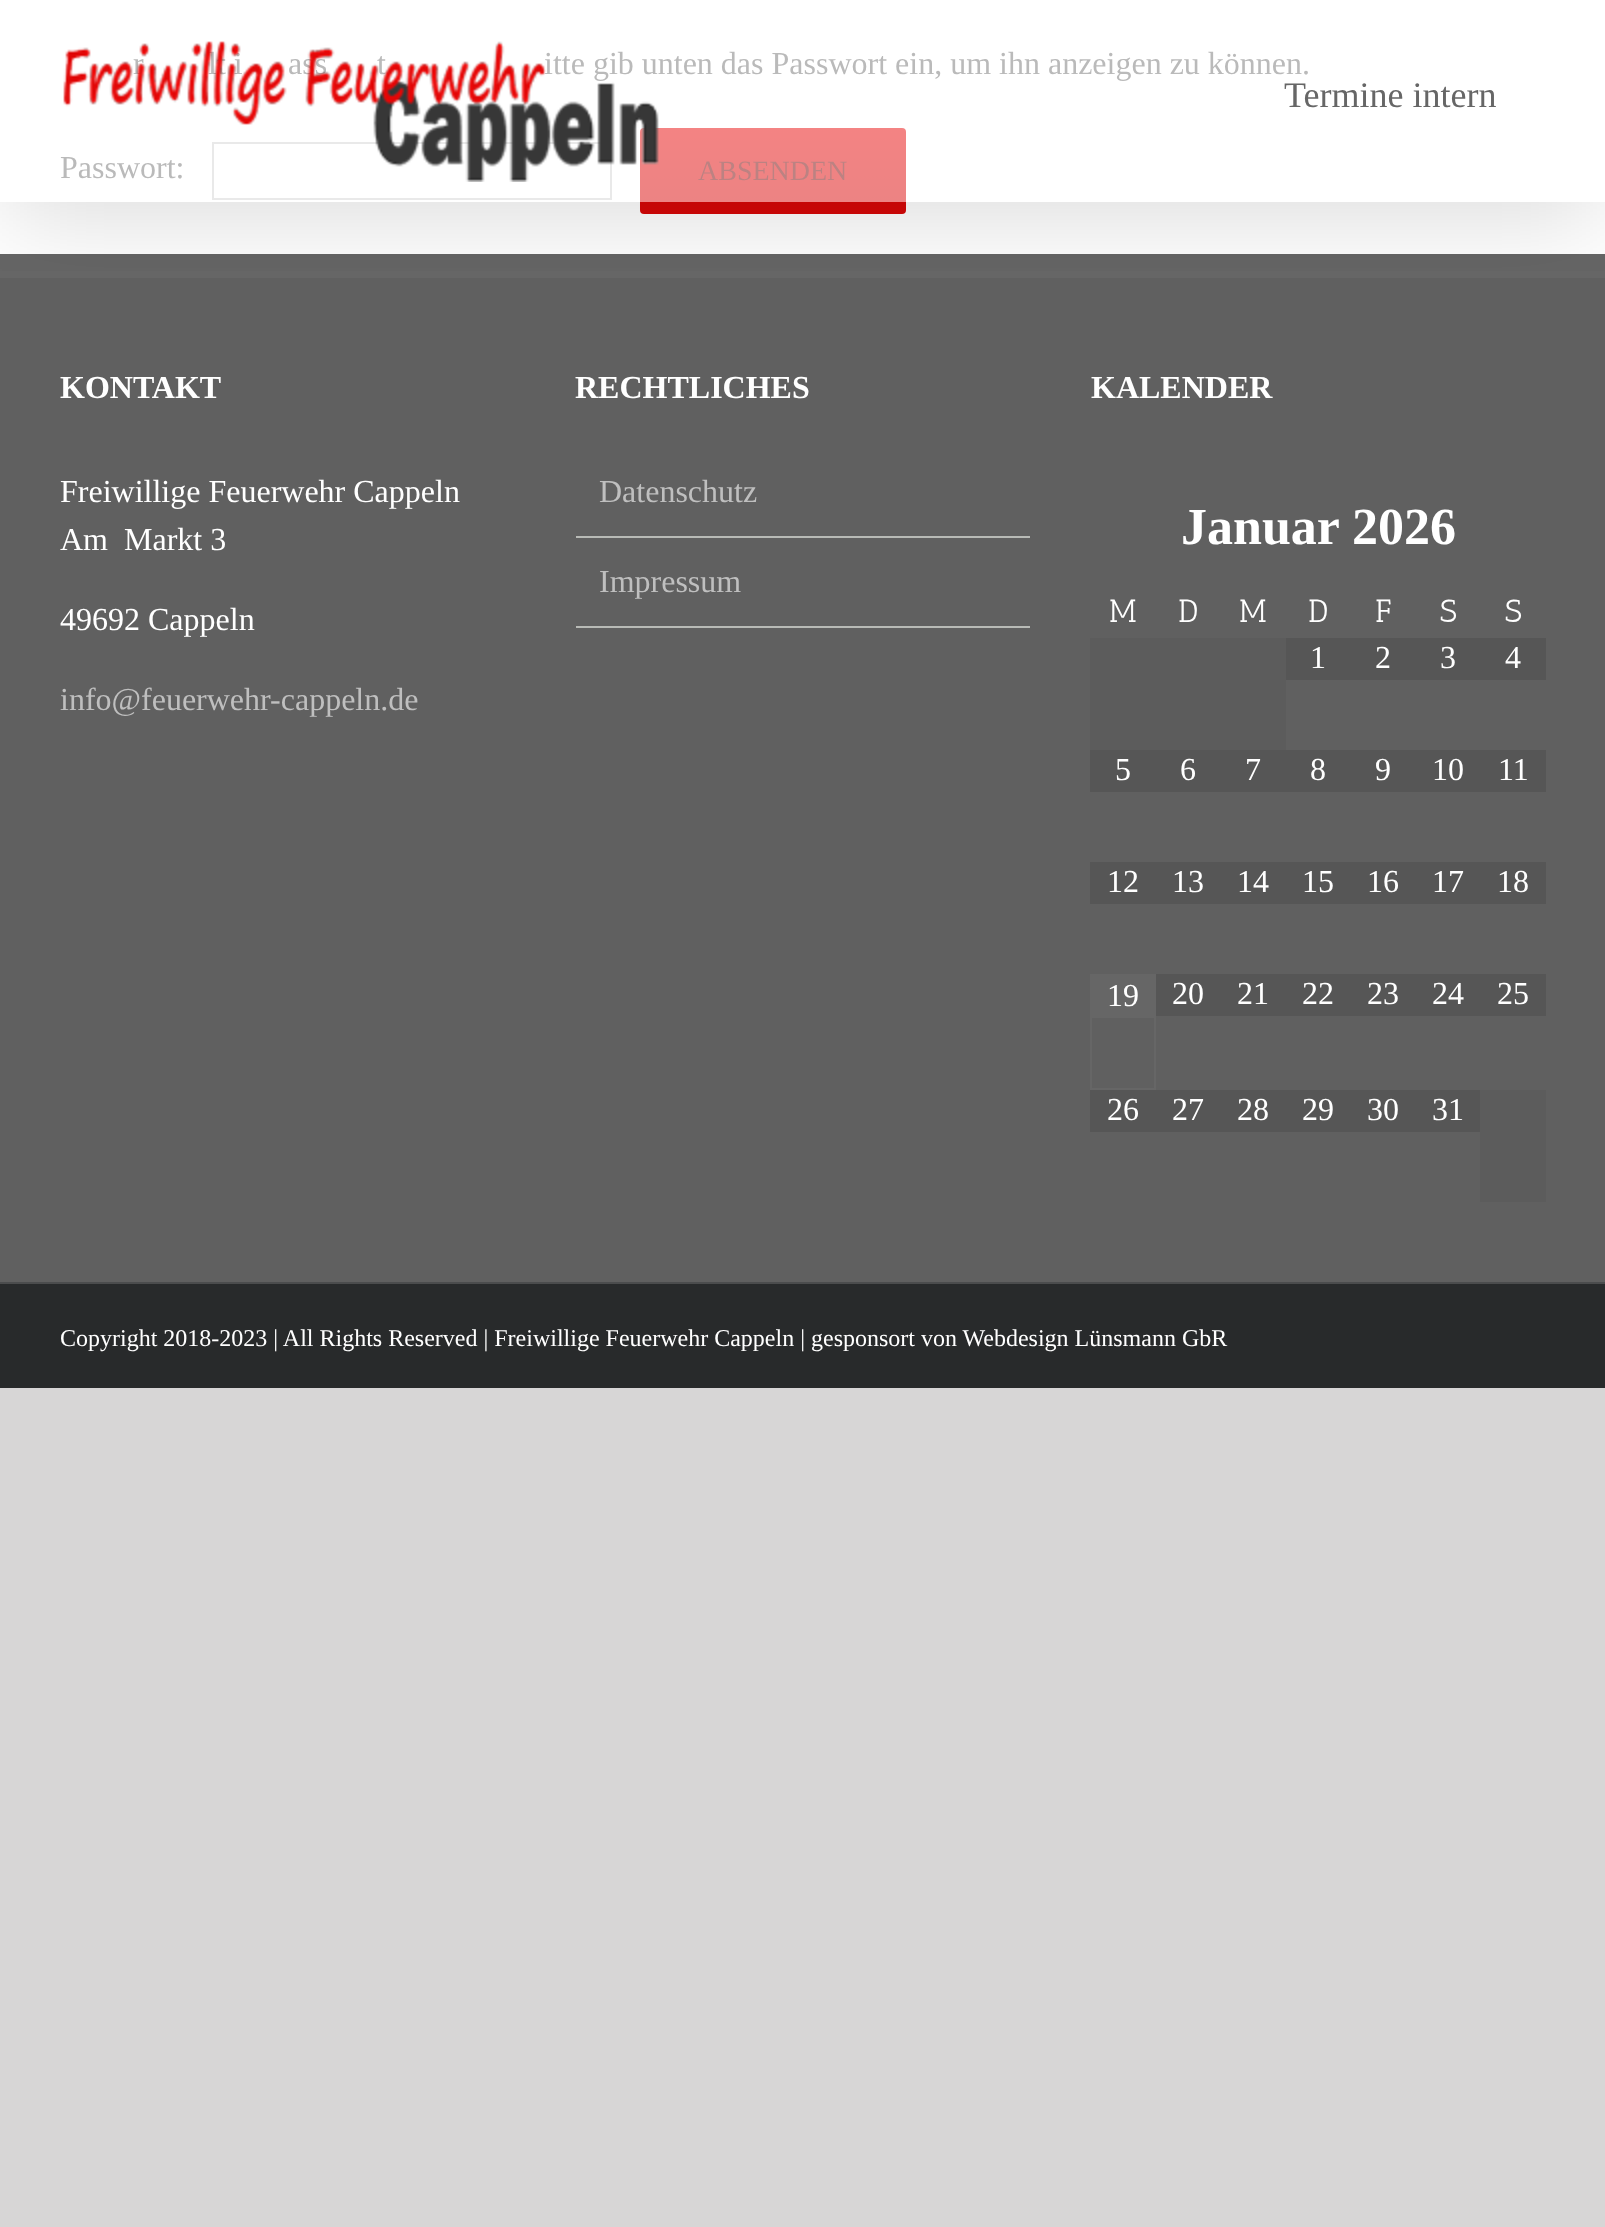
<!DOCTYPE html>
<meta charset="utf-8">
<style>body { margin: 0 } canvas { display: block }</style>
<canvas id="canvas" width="1605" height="2227"></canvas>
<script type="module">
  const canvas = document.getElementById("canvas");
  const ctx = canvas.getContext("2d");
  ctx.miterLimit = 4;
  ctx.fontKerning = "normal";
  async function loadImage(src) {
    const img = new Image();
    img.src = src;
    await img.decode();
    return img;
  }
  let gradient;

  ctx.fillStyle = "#d7d6d6";
  ctx.fillRect(0, 0, 1605, 2227);
  ctx.fillStyle = "#ffffff";
  ctx.fillRect(0, 0, 1605, 254);
  ctx.font = "32px Liberation Serif";
  ctx.fillStyle = "#747474";
  ctx.fillText("r", 133, 74);
  ctx.fillText("lt i", 208, 74);
  ctx.fillText("ass", 288, 74);
  ctx.fillText("t", 377, 74);
  ctx.fillText("itte gib unten das Passwort ein, um ihn anzeigen zu können.", 544, 74);
  ctx.fillText("Passwort:", 60, 178);
  ctx.strokeStyle = "#d2d2d2";
  ctx.lineWidth = 2;
  ctx.strokeRect(213, 143, 398, 56);
  gradient = ctx.createLinearGradient(773, 128, 773, 214);
  gradient.addColorStop(0, "#e80707");
  gradient.addColorStop(1, "#d60707");
  ctx.fillStyle = gradient;
  ctx.beginPath();
  ctx.roundRect(640, 128, 266, 86, 4);
  ctx.fill();
  ctx.font = "28px Liberation Serif";
  ctx.fillStyle = "#780404";
  ctx.fillText("ABSENDEN", 698, 180);
  ctx.fillStyle = "#606060";
  ctx.fillRect(0, 278, 1605, 1004);
  ctx.fillStyle = "#666666";
  ctx.fillRect(0, 254, 1605, 24);
  ctx.save();
  ctx.beginPath();
  ctx.rect(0, 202, 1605, 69);
  ctx.clip();
  ctx.fillStyle = "rgba(0, 0, 0, 0.14)";
  ctx.filter = "blur(50px)";
  ctx.beginPath();
  ctx.rect(4, 24, 1598, 194);
  ctx.fill();
  ctx.filter = "none";
  ctx.restore();
  ctx.fillStyle = "rgba(255, 255, 255, 0.5)";
  ctx.fillRect(60, 51, 1249, 151);
  ctx.drawImage(await loadImage("img1.png"), 63, 41, 596, 141);
  ctx.font = "36px Liberation Serif";
  ctx.fillStyle = "#666666";
  ctx.fillText("Termine intern", 1284, 107);
  ctx.font = "bold 32px Liberation Serif";
  ctx.fillStyle = "#ffffff";
  ctx.fillText("KONTAKT", 60, 398);
  ctx.font = "32px Liberation Serif";
  ctx.fillText("Freiwillige Feuerwehr Cappeln", 60, 502);
  ctx.fillText("Am  Markt 3", 60, 550);
  ctx.fillText("49692 Cappeln", 60, 630);
  ctx.fillStyle = "#bfbfbf";
  ctx.fillText("info@feuerwehr-cappeln.de", 60, 710);
  ctx.font = "bold 32px Liberation Serif";
  ctx.fillStyle = "#ffffff";
  ctx.fillText("RECHTLICHES", 575, 398);
  ctx.fillStyle = "#b8bab6";
  ctx.fillRect(576, 536, 454, 2);
  ctx.font = "32px Liberation Serif";
  ctx.fillStyle = "#bfbfbf";
  ctx.fillText("Datenschutz", 599, 502);
  ctx.fillStyle = "#b8bab6";
  ctx.fillRect(576, 626, 454, 2);
  ctx.fillStyle = "#bfbfbf";
  ctx.fillText("Impressum", 599, 592);
  ctx.font = "bold 32px Liberation Serif";
  ctx.fillStyle = "#ffffff";
  ctx.fillText("KALENDER", 1091, 398);
  ctx.font = "bold 52px Liberation Serif";
  ctx.fillText("Januar", 1181, 544);
  ctx.fillText("2026", 1352, 544);
  ctx.font = "32px Antic Slab";
  ctx.fillText("M", 1109, 622);
  ctx.fillText("D", 1178, 622);
  ctx.fillText("M", 1239, 622);
  ctx.fillText("D", 1308, 622);
  ctx.fillText("F", 1375, 622);
  ctx.fillText("S", 1440, 622);
  ctx.fillText("S", 1505, 622);
  ctx.fillStyle = "#5c5c5c";
  ctx.fillRect(1090, 638, 196, 112);
  ctx.fillStyle = "#565656";
  ctx.fillRect(1286, 638, 260, 42);
  ctx.font = "32px Liberation Serif";
  ctx.fillStyle = "#ffffff";
  ctx.fillText("1", 1310, 668);
  ctx.fillText("2", 1375, 668);
  ctx.fillText("3", 1440, 668);
  ctx.fillText("4", 1505, 668);
  ctx.fillStyle = "#565656";
  ctx.fillRect(1090, 750, 456, 42);
  ctx.fillStyle = "#ffffff";
  ctx.fillText("5", 1115, 780);
  ctx.fillText("6", 1180, 780);
  ctx.fillText("7", 1245, 780);
  ctx.fillText("8", 1310, 780);
  ctx.fillText("9", 1375, 780);
  ctx.fillText("10", 1432, 780);
  ctx.fillText("11", 1498, 780);
  ctx.fillStyle = "#565656";
  ctx.fillRect(1090, 862, 456, 42);
  ctx.fillStyle = "#ffffff";
  ctx.fillText("12", 1107, 892);
  ctx.fillText("13", 1172, 892);
  ctx.fillText("14", 1237, 892);
  ctx.fillText("15", 1302, 892);
  ctx.fillText("16", 1367, 892);
  ctx.fillText("17", 1432, 892);
  ctx.fillText("18", 1497, 892);
  ctx.strokeStyle = "#666666";
  ctx.strokeRect(1091, 975, 64, 114);
  ctx.fillStyle = "#666666";
  ctx.fillRect(1092, 976, 62, 42);
  ctx.fillStyle = "#ffffff";
  ctx.fillText("19", 1107, 1006);
  ctx.fillStyle = "#565656";
  ctx.fillRect(1156, 974, 390, 42);
  ctx.fillStyle = "#ffffff";
  ctx.fillText("20", 1172, 1004);
  ctx.fillText("21", 1237, 1004);
  ctx.fillText("22", 1302, 1004);
  ctx.fillText("23", 1367, 1004);
  ctx.fillText("24", 1432, 1004);
  ctx.fillText("25", 1497, 1004);
  ctx.fillStyle = "#565656";
  ctx.fillRect(1090, 1090, 390, 42);
  ctx.fillStyle = "#ffffff";
  ctx.fillText("26", 1107, 1120);
  ctx.fillText("27", 1172, 1120);
  ctx.fillText("28", 1237, 1120);
  ctx.fillText("29", 1302, 1120);
  ctx.fillText("30", 1367, 1120);
  ctx.fillText("31", 1432, 1120);
  ctx.fillStyle = "#5c5c5c";
  ctx.fillRect(1480, 1090, 66, 112);
  ctx.fillStyle = "#282a2b";
  ctx.fillRect(0, 1284, 1605, 104);
  ctx.fillStyle = "#4b4c4d";
  ctx.fillRect(0, 1282, 1605, 2);
  ctx.font = "24px Liberation Serif";
  ctx.fillStyle = "#ffffff";
  ctx.fillText("Copyright 2018-2023 | All Rights Reserved | Freiwillige Feuerwehr Cappeln | gesponsort von Webdesign Lünsmann GbR", 60, 1346);
</script>
